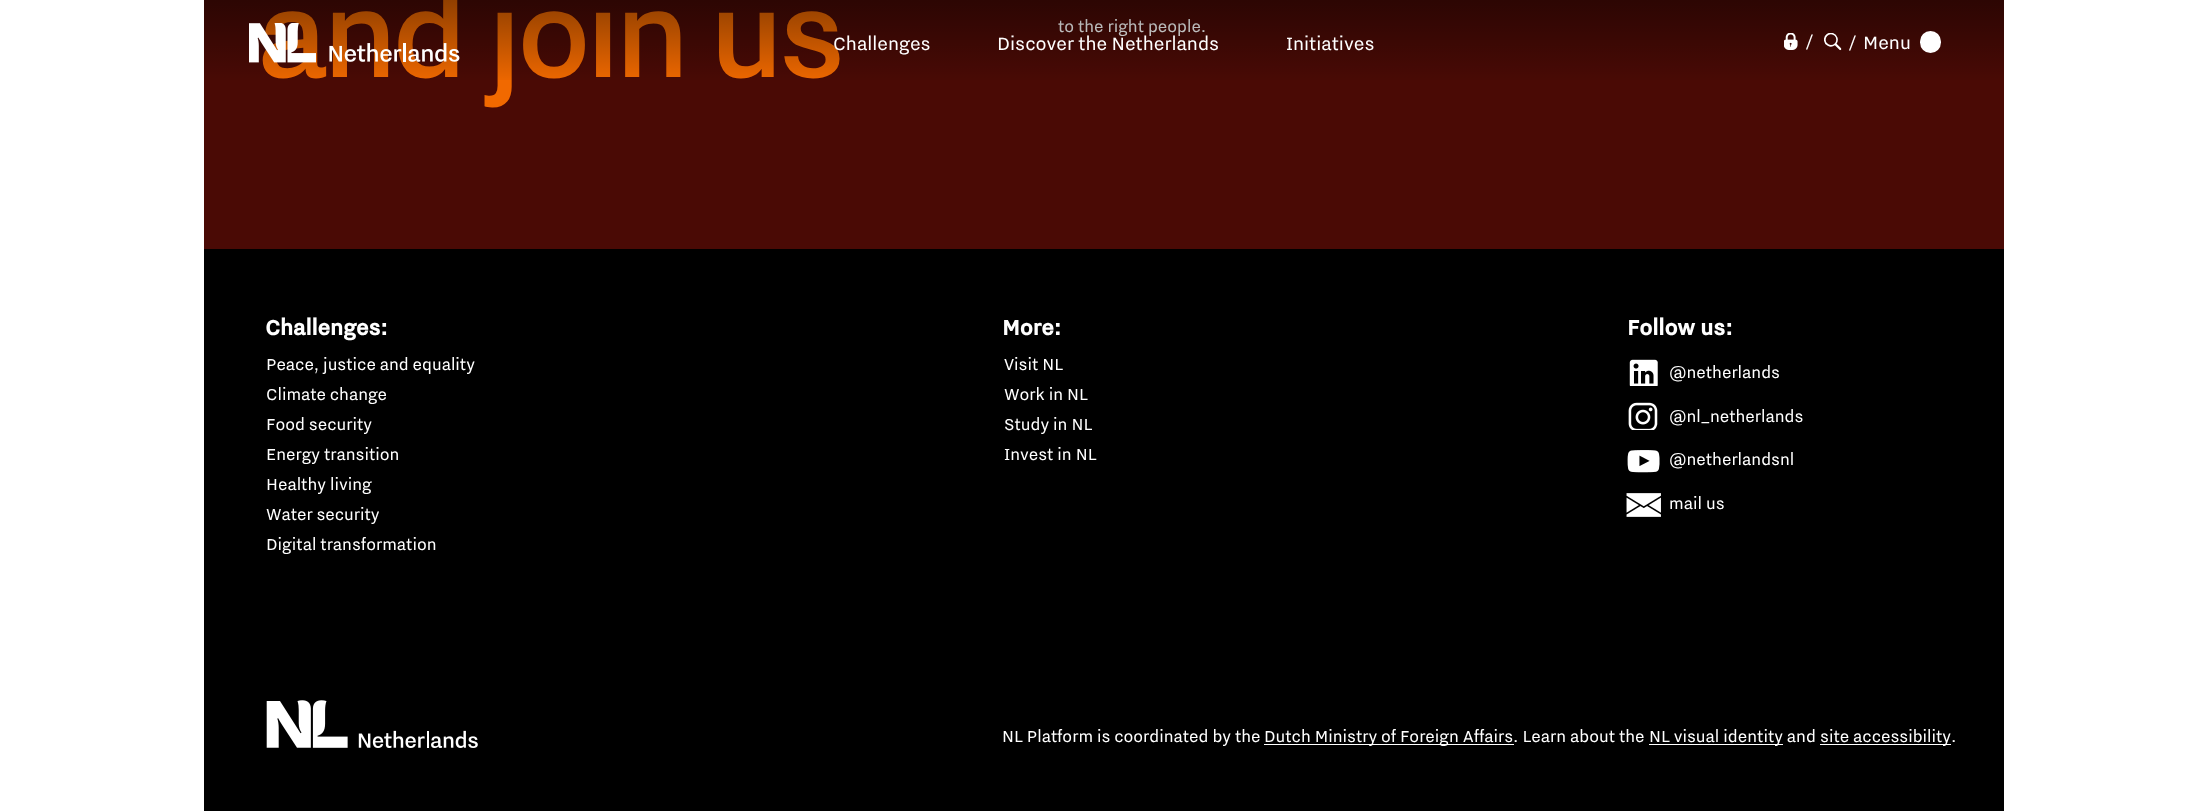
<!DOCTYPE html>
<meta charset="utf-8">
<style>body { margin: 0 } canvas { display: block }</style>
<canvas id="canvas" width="2207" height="812"></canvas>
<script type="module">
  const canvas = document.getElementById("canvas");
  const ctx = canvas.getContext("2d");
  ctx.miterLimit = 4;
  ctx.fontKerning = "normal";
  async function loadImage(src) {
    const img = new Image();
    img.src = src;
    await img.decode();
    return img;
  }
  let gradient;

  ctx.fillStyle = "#ffffff";
  ctx.fillRect(0, 0, 2207, 812);
  ctx.fillStyle = "#4a0a05";
  ctx.fillRect(204, 0, 1800, 249);
  ctx.letterSpacing = "-6px";
  ctx.font = "500 150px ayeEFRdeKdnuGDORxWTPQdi";
  ctx.fillStyle = "#f16900";
  ctx.fillText("and join us", 257, 77);
  ctx.letterSpacing = "0px";
  ctx.font = "20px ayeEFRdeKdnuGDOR";
  ctx.fillStyle = "#ffffff";
  ctx.fillText("to the right people.", 1058, 32);
  gradient = ctx.createLinearGradient(1104, 0, 1104, 85);
  gradient.addColorStop(0, "rgba(0, 0, 0, 0.4)");
  gradient.addColorStop(1, "rgba(0, 0, 0, 0)");
  ctx.fillStyle = gradient;
  ctx.fillRect(204, 0, 1800, 80);
  ctx.drawImage(await loadImage("img1.png"), 249, 23, 67, 40);
  ctx.drawImage(await loadImage("img2.png"), 329, 43, 131, 19);
  ctx.font = "22.5px ayeEFRdeKdnuGDOR";
  ctx.fillStyle = "#ffffff";
  ctx.fillText("Challenges", 833, 50);
  ctx.fillText("Discover the Netherlands", 997, 50);
  ctx.fillText("Initiatives", 1286, 50);
  ctx.drawImage(await loadImage("img3.png"), 1784, 33, 14, 17);
  ctx.font = "22px ayeEFRdeKdnuGDOR";
  ctx.fillText("/", 1806, 48);
  ctx.drawImage(await loadImage("img4.png"), 1824, 33, 18, 18);
  ctx.fillText("/", 1849, 49);
  ctx.font = "22.5px ayeEFRdeKdnuGDOR";
  ctx.fillText("Menu", 1863, 49);
  ctx.beginPath();
  ctx.roundRect(1920, 31, 21, 22, 10.5);
  ctx.fill();
  ctx.fillStyle = "#000000";
  ctx.fillRect(204, 249, 1800, 562);
  ctx.font = "bold 26px ayeEFRdeKdnuGDORxWTPQdi";
  ctx.fillStyle = "#ffffff";
  ctx.fillText("Challenges:", 265, 335);
  ctx.font = "20px ayeEFRdeKdnuGDOR";
  ctx.fillText("Peace, justice and equality", 266, 370);
  ctx.fillText("Climate change", 266, 400);
  ctx.fillText("Food security", 266, 430);
  ctx.fillText("Energy transition", 266, 460);
  ctx.fillText("Healthy living", 266, 490);
  ctx.fillText("Water security", 266, 520);
  ctx.fillText("Digital transformation", 266, 550);
  ctx.font = "bold 26px ayeEFRdeKdnuGDORxWTPQdi";
  ctx.fillText("More:", 1002, 335);
  ctx.font = "20px ayeEFRdeKdnuGDOR";
  ctx.fillText("Visit NL", 1004, 370);
  ctx.fillText("Work in NL", 1004, 400);
  ctx.fillText("Study in NL", 1004, 430);
  ctx.fillText("Invest in NL", 1004, 460);
  ctx.font = "bold 26px ayeEFRdeKdnuGDORxWTPQdi";
  ctx.fillText("Follow us:", 1627, 335);
  ctx.drawImage(await loadImage("img5.png"), 1629, 359, 29, 27);
  ctx.font = "20px ayeEFRdeKdnuGDOR";
  ctx.fillText("@netherlands", 1669, 378);
  ctx.drawImage(await loadImage("img6.png"), 1628, 402, 30, 28);
  ctx.fillText("@nl_netherlands", 1669, 422);
  ctx.drawImage(await loadImage("img7.png"), 1627, 450, 33, 23);
  ctx.fillText("@netherlandsnl", 1669, 465);
  ctx.drawImage(await loadImage("img8.png"), 1626, 493, 35, 24);
  ctx.fillText("mail us", 1669, 509);
  ctx.drawImage(await loadImage("img9.png"), 266, 700, 212, 48);
  ctx.fillText("NL Platform is coordinated by the", 1002, 742);
  ctx.fillRect(1264, 744, 250, 1);
  ctx.fillText("Dutch Ministry of Foreign Affairs. Learn about the", 1264, 742);
  ctx.fillRect(1649, 744, 134, 1);
  ctx.fillText("NL visual identity and", 1649, 742);
  ctx.fillRect(1820, 744, 131, 1);
  ctx.fillText("site accessibility", 1820, 742);
  ctx.fillText(".", 1951, 742);
</script>
